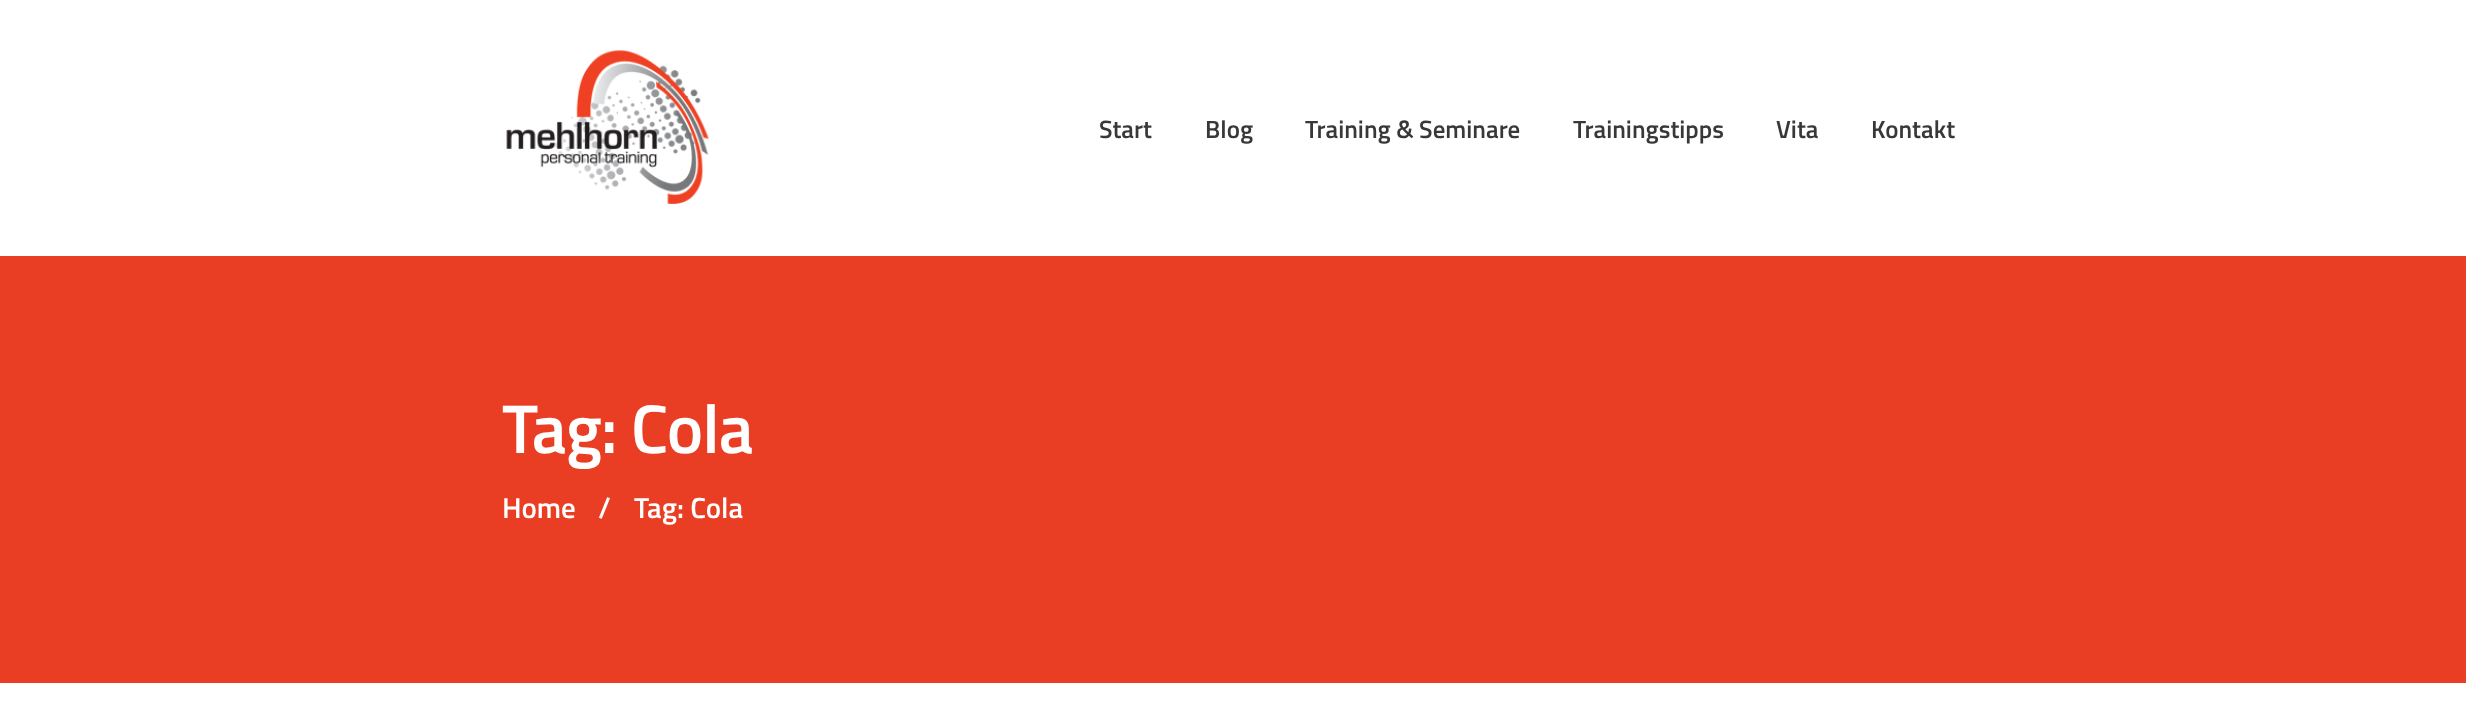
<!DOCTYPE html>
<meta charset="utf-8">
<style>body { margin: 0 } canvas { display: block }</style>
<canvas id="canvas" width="2466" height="725"></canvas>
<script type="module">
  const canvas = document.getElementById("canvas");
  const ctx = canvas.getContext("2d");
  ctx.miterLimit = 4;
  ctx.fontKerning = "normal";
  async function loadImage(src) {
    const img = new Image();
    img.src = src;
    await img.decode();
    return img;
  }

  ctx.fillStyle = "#ffffff";
  ctx.fillRect(0, 0, 2466, 725);
  ctx.drawImage(await loadImage("img1.png"), 506, 50, 203, 154);
  ctx.font = "600 25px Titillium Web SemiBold";
  ctx.fillStyle = "#383838";
  ctx.fillText("Start", 1099, 138);
  ctx.fillText("Blog", 1205, 138);
  ctx.fillText("Training & Seminare", 1305, 138);
  ctx.fillText("Trainingstipps", 1573, 138);
  ctx.fillText("Vita", 1776, 138);
  ctx.fillText("Kontakt", 1871, 138);
  ctx.fillStyle = "#e93e23";
  ctx.fillRect(0, 256, 2466, 427);
  ctx.letterSpacing = "-1px";
  ctx.font = "600 69px Titillium Web SemiBold";
  ctx.fillStyle = "#ffffff";
  ctx.fillText("Tag: Cola", 502, 453);
  ctx.letterSpacing = "0px";
  ctx.font = "600 29px Titillium Web SemiBold";
  ctx.fillText("Home", 502, 518);
  ctx.fillText("/", 598, 518);
  ctx.fillText("Tag: Cola", 634, 518);
</script>
